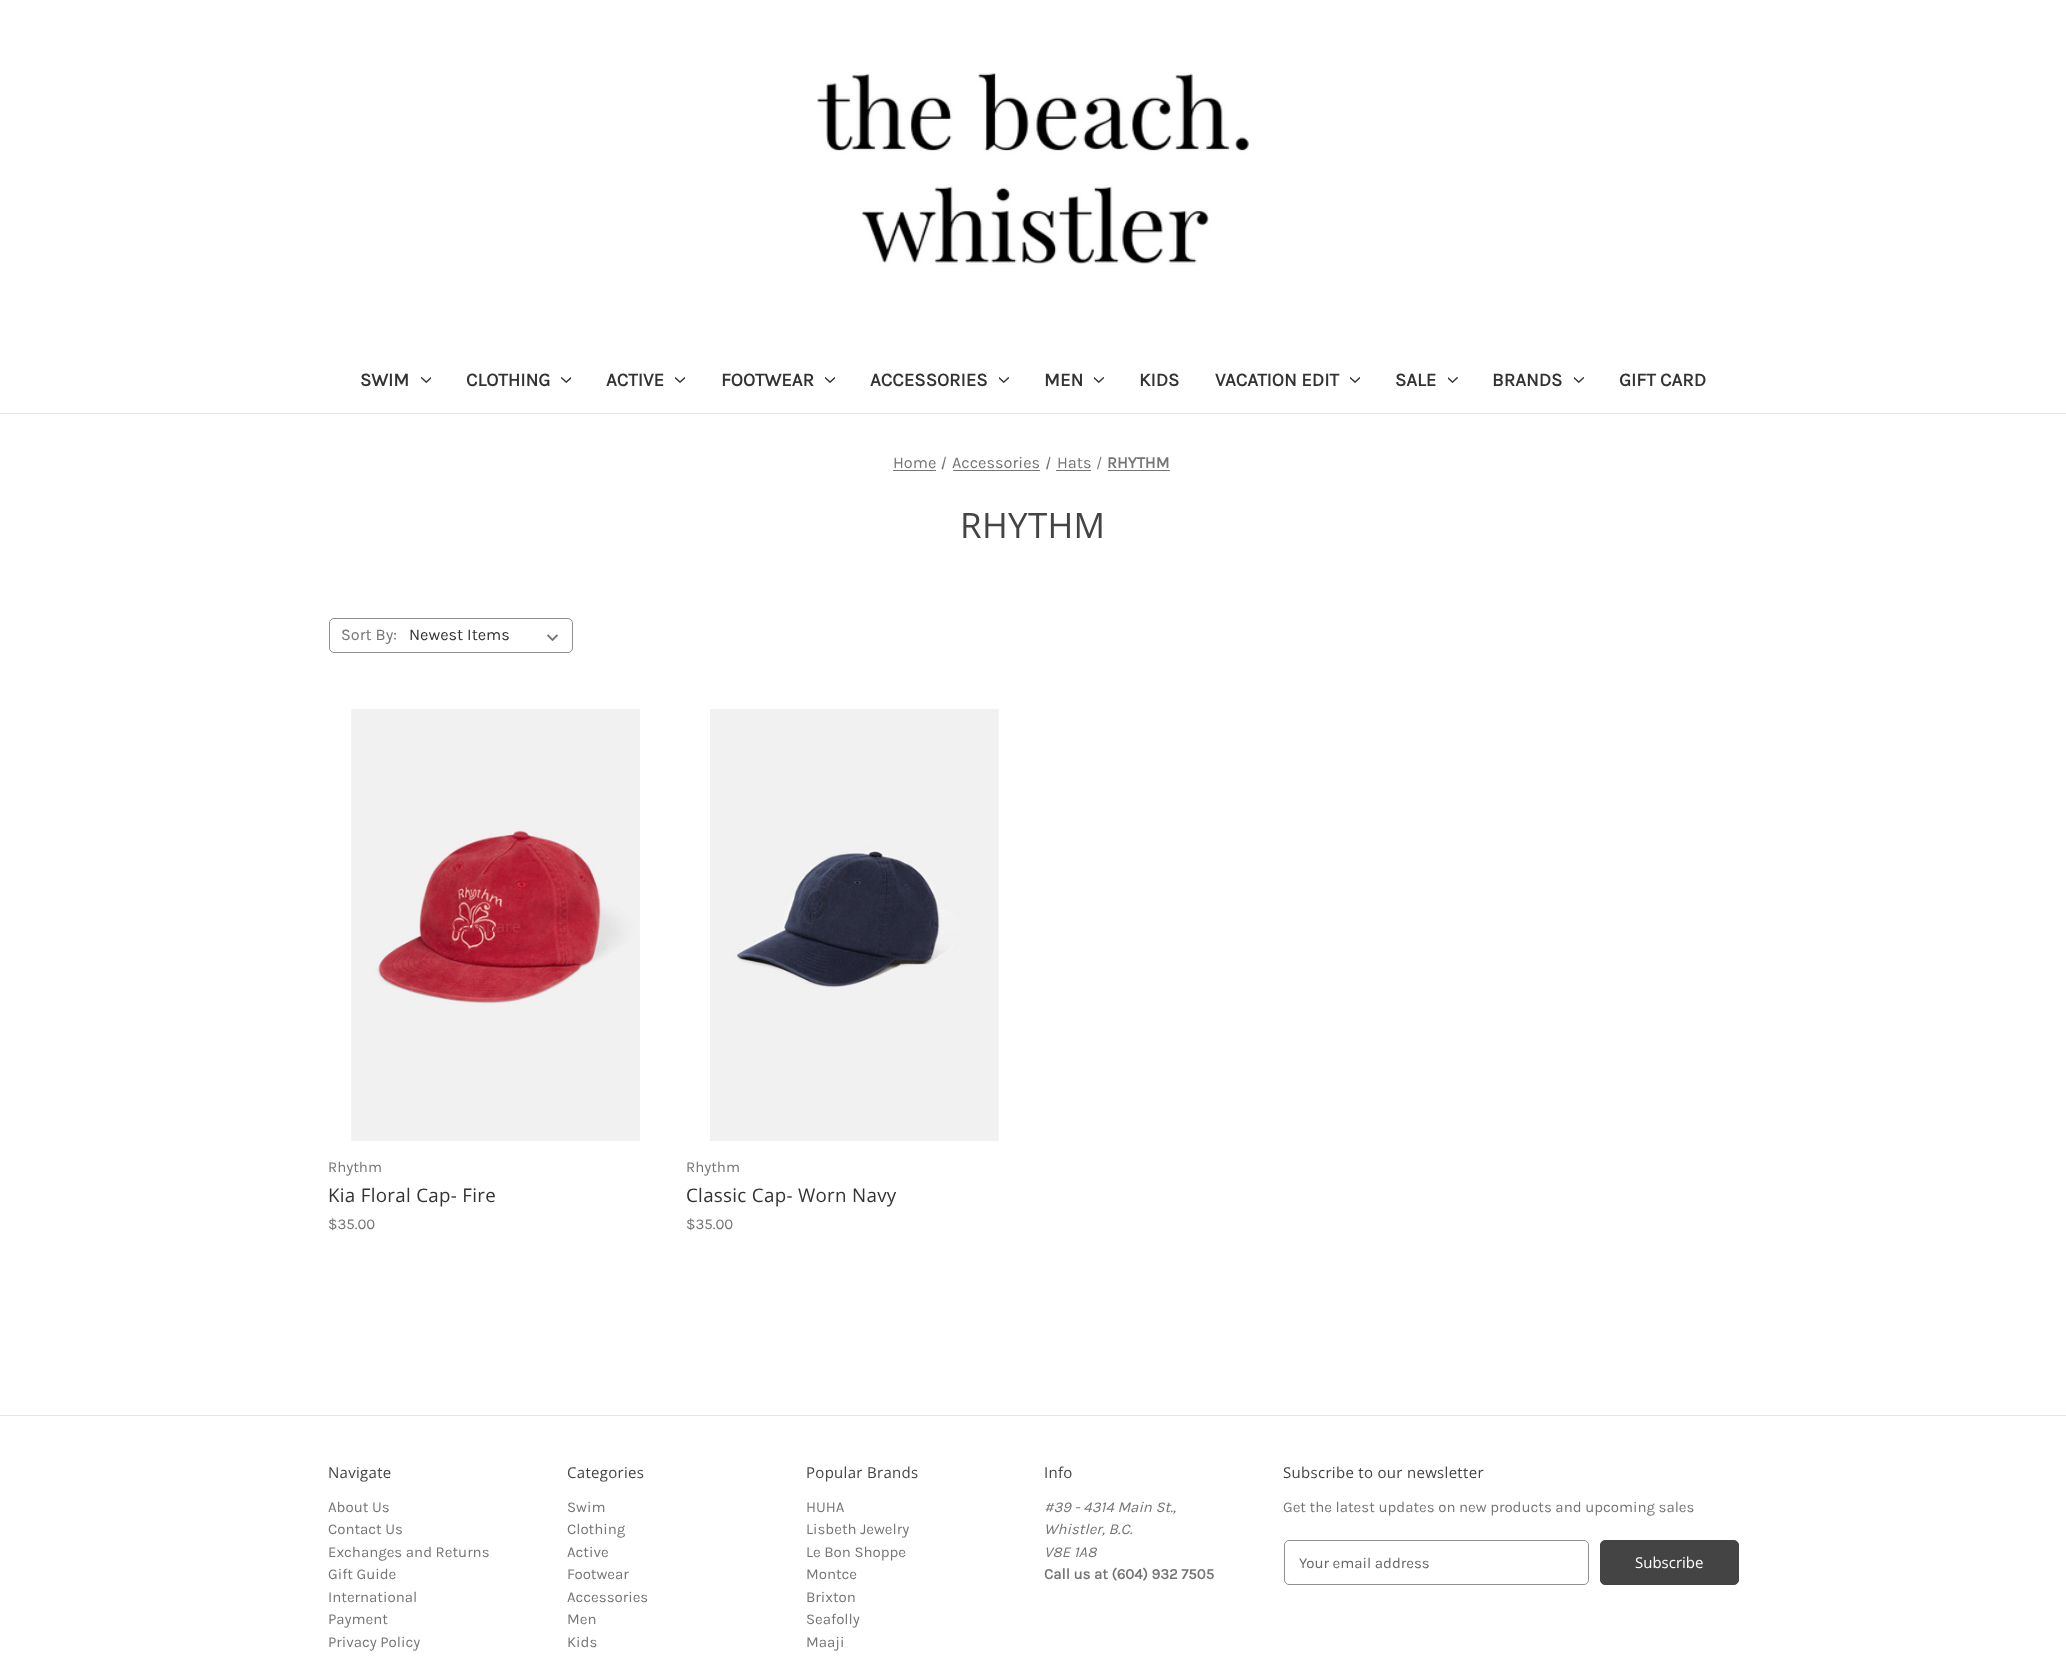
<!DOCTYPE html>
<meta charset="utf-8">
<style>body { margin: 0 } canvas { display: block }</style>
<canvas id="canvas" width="2066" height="1661"></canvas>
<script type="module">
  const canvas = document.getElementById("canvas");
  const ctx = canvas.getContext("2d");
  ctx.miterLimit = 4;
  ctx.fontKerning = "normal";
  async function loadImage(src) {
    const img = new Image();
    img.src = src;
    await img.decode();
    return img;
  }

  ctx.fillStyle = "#ffffff";
  ctx.fillRect(0, 0, 2066, 1661);
  ctx.fillStyle = "#e5e5e5";
  ctx.fillRect(0, 413, 2066, 1);
  ctx.drawImage(await loadImage("img1.png"), 817, 72, 432, 193);
  ctx.font = "bold 18.75px Karla";
  ctx.fillStyle = "#333333";
  ctx.fillText("SWIM", 360, 386);
  ctx.drawImage(await loadImage("img2.png"), 421, 377, 10, 6);
  ctx.fillText("CLOTHING", 466, 386);
  ctx.drawImage(await loadImage("img2.png"), 561, 377, 10, 6);
  ctx.fillText("ACTIVE", 606, 386);
  ctx.drawImage(await loadImage("img3.png"), 675, 377, 10, 6);
  ctx.fillText("FOOTWEAR", 721, 386);
  ctx.drawImage(await loadImage("img3.png"), 825, 377, 10, 6);
  ctx.fillText("ACCESSORIES", 870, 386);
  ctx.drawImage(await loadImage("img4.png"), 999, 377, 10, 6);
  ctx.fillText("MEN", 1044, 386);
  ctx.drawImage(await loadImage("img4.png"), 1094, 377, 10, 6);
  ctx.fillText("KIDS", 1139, 386);
  ctx.fillText("VACATION EDIT", 1215, 386);
  ctx.drawImage(await loadImage("img3.png"), 1350, 377, 10, 6);
  ctx.fillText("SALE", 1395, 386);
  ctx.drawImage(await loadImage("img5.png"), 1448, 377, 10, 6);
  ctx.fillText("BRANDS", 1492, 386);
  ctx.drawImage(await loadImage("img4.png"), 1574, 377, 10, 6);
  ctx.fillText("GIFT CARD", 1619, 386);
  ctx.font = "16.25px Karla";
  ctx.fillStyle = "#757575";
  ctx.fillText("Home", 893, 468);
  ctx.fillRect(893, 470, 43, 1);
  ctx.beginPath();
  ctx.moveTo(945, 456.5);
  ctx.lineTo(946, 457);
  ctx.lineTo(943, 469.5);
  ctx.lineTo(941.5, 469);
  ctx.closePath();
  ctx.fill();
  ctx.fillText("Accessories", 952, 468);
  ctx.fillRect(953, 470, 87, 1);
  ctx.beginPath();
  ctx.moveTo(1049.5, 456.5);
  ctx.lineTo(1050.5, 457);
  ctx.lineTo(1047.5, 469.5);
  ctx.lineTo(1046, 469);
  ctx.closePath();
  ctx.moveTo(1100.5, 456.5);
  ctx.lineTo(1101.5, 457);
  ctx.lineTo(1098, 469.5);
  ctx.lineTo(1097, 469);
  ctx.closePath();
  ctx.fill();
  ctx.fillText("Hats", 1057, 468);
  ctx.fillRect(1056, 470, 35, 1);
  ctx.font = "bold 16.25px Karla";
  ctx.fillText("RHYTHM", 1107, 468);
  ctx.fillRect(1108, 470, 62, 1);
  ctx.letterSpacing = "0.3px";
  ctx.font = "35px Open Sans";
  ctx.fillStyle = "#444444";
  ctx.fillText("RHYTHM", 960, 538);
  ctx.beginPath();
  ctx.roundRect(329.5, 618.5, 243, 34, 4.5);
  ctx.strokeStyle = "#8f8f8f";
  ctx.stroke();
  ctx.letterSpacing = "0px";
  ctx.font = "16.25px Karla";
  ctx.fillStyle = "#757575";
  ctx.fillText("Sort By:", 341, 640);
  ctx.drawImage(await loadImage("img6.png"), 547, 634, 11, 8);
  ctx.fillStyle = "#333333";
  ctx.fillText("Newest Items", 409, 640);
  ctx.drawImage(await loadImage("img7.png"), 351, 709, 289, 432);
  ctx.font = "16.25px Open Sans";
  ctx.fillStyle = "#b73746";
  ctx.fillText("Compare", 451, 932);
  ctx.font = "15px Karla";
  ctx.fillStyle = "#757575";
  ctx.fillText("Rhythm", 328, 1172);
  ctx.letterSpacing = "0.3px";
  ctx.font = "18.75px Open Sans";
  ctx.fillStyle = "#333333";
  ctx.fillText("Kia Floral Cap- Fire", 328, 1202);
  ctx.letterSpacing = "0px";
  ctx.font = "15px Karla";
  ctx.fillStyle = "#757575";
  ctx.fillText("$35.00", 328, 1229);
  ctx.drawImage(await loadImage("img8.png"), 710, 709, 289, 432);
  ctx.fillText("Rhythm", 686, 1172);
  ctx.letterSpacing = "0.3px";
  ctx.font = "18.75px Open Sans";
  ctx.fillStyle = "#333333";
  ctx.fillText("Classic Cap- Worn Navy", 686, 1202);
  ctx.letterSpacing = "0px";
  ctx.font = "15px Karla";
  ctx.fillStyle = "#757575";
  ctx.fillText("$35.00", 686, 1229);
  ctx.fillStyle = "#e5e5e5";
  ctx.fillRect(0, 1415, 2066, 1);
  ctx.letterSpacing = "0.3px";
  ctx.font = "15px Open Sans";
  ctx.fillStyle = "#444444";
  ctx.fillText("Navigate", 328, 1478);
  ctx.letterSpacing = "0px";
  ctx.font = "15px Karla";
  ctx.fillStyle = "#757575";
  ctx.fillText("About Us", 328, 1512);
  ctx.fillText("Contact Us", 328, 1534);
  ctx.fillText("Exchanges and Returns", 328, 1557);
  ctx.fillText("Gift Guide", 328, 1579);
  ctx.fillText("International", 328, 1602);
  ctx.fillText("Payment", 328, 1624);
  ctx.fillText("Privacy Policy", 328, 1647);
  ctx.letterSpacing = "0.3px";
  ctx.font = "15px Open Sans";
  ctx.fillStyle = "#444444";
  ctx.fillText("Categories", 567, 1478);
  ctx.letterSpacing = "0px";
  ctx.font = "15px Karla";
  ctx.fillStyle = "#757575";
  ctx.fillText("Swim", 567, 1512);
  ctx.fillText("Clothing", 567, 1534);
  ctx.fillText("Active", 567, 1557);
  ctx.fillText("Footwear", 567, 1579);
  ctx.fillText("Accessories", 567, 1602);
  ctx.fillText("Men", 567, 1624);
  ctx.fillText("Kids", 567, 1647);
  ctx.letterSpacing = "0.3px";
  ctx.font = "15px Open Sans";
  ctx.fillStyle = "#444444";
  ctx.fillText("Popular Brands", 806, 1478);
  ctx.letterSpacing = "0px";
  ctx.font = "15px Karla";
  ctx.fillStyle = "#757575";
  ctx.fillText("HUHA", 806, 1512);
  ctx.fillText("Lisbeth Jewelry", 806, 1534);
  ctx.fillText("Le Bon Shoppe", 806, 1557);
  ctx.fillText("Montce", 806, 1579);
  ctx.fillText("Brixton", 806, 1602);
  ctx.fillText("Seafolly", 806, 1624);
  ctx.fillText("Maaji", 806, 1647);
  ctx.letterSpacing = "0.3px";
  ctx.font = "15px Open Sans";
  ctx.fillStyle = "#444444";
  ctx.fillText("Info", 1044, 1478);
  ctx.letterSpacing = "0px";
  ctx.font = "italic 15px Karla";
  ctx.fillStyle = "#757575";
  ctx.fillText("#39 - 4314 Main St.,", 1044, 1512);
  ctx.fillText("Whistler, B.C.", 1044, 1534);
  ctx.fillText("V8E 1A8", 1044, 1557);
  ctx.font = "bold 15px Karla";
  ctx.fillText("Call us at (604) 932 7505", 1044, 1579);
  ctx.letterSpacing = "0.3px";
  ctx.font = "15px Open Sans";
  ctx.fillStyle = "#444444";
  ctx.fillText("Subscribe to our newsletter", 1283, 1478);
  ctx.letterSpacing = "0px";
  ctx.font = "15px Karla";
  ctx.fillStyle = "#757575";
  ctx.fillText("Get the latest updates on new products and upcoming sales", 1283, 1512);
  ctx.beginPath();
  ctx.roundRect(1284.5, 1540.5, 304, 44, 4.5);
  ctx.stroke();
  ctx.fillStyle = "#666666";
  ctx.fillText("Your email address", 1299, 1568);
  ctx.fillStyle = "#444444";
  ctx.beginPath();
  ctx.roundRect(1600.5, 1540.5, 138, 44, 4.5);
  ctx.fill();
  ctx.strokeStyle = "#444444";
  ctx.stroke();
  ctx.font = "15px Open Sans";
  ctx.fillStyle = "#ffffff";
  ctx.fillText("Subscribe", 1635, 1568);
</script>
